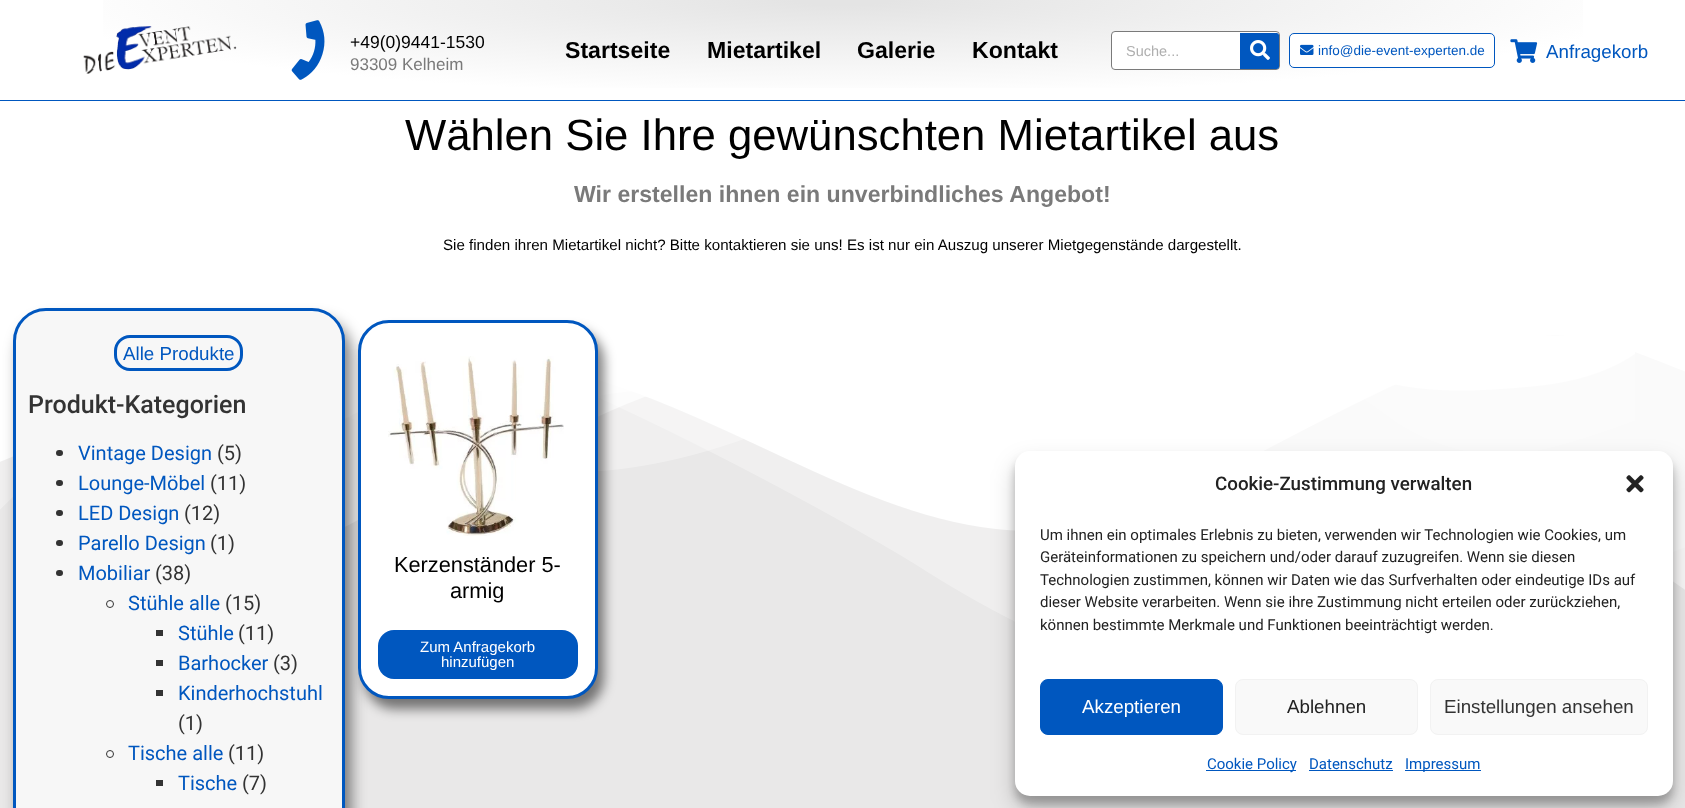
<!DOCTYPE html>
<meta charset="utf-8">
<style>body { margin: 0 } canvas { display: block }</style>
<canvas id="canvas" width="1685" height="808"></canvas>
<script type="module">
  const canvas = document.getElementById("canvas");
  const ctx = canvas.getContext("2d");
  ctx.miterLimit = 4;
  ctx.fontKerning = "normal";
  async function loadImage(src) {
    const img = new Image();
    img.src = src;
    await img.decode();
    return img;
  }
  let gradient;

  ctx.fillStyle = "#ffffff";
  ctx.fillRect(0, 0, 1685, 808);
  ctx.fillStyle = "#0057bf";
  ctx.fillRect(0, 100, 1685, 1);
  gradient = ctx.createRadialGradient(843, 0, 0, 843, 0, 1191);
  gradient.addColorStop(0.04, "#e4e4e4");
  gradient.addColorStop(0.68, "#ffffff");
  ctx.fillStyle = gradient;
  ctx.beginPath();
  ctx.rect(103, 0, 1480, 88);
  ctx.save();
  ctx.clip();
  ctx.scale(1, 141 / 1191);
  ctx.fillRect(0, 0, 1685, 6826);
  ctx.restore();
  ctx.drawImage(await loadImage("img1.png"), 83, 26, 154, 48);
  ctx.drawImage(await loadImage("img2.png"), 291, 20, 34, 60);
  ctx.font = "17.5px Liberation Sans";
  ctx.fillStyle = "#000000";
  ctx.fillText("+49(0)9441-1530", 350, 48);
  ctx.font = "17px Liberation Sans";
  ctx.fillStyle = "#7a7a7a";
  ctx.fillText("93309 Kelheim", 350, 70);
  ctx.font = "bold 23.1px Liberation Sans";
  ctx.fillStyle = "#000000";
  ctx.fillText("Startseite", 565, 58);
  ctx.fillText("Mietartikel", 707, 58);
  ctx.fillText("Galerie", 857, 58);
  ctx.fillText("Kontakt", 972, 58);
  ctx.fillStyle = "#ffffff";
  ctx.beginPath();
  ctx.roundRect(1111.5, 31.5, 168, 38, 3.5);
  ctx.fill();
  ctx.strokeStyle = "#7a7a7a";
  ctx.stroke();
  ctx.font = "14.5px Liberation Sans";
  ctx.fillStyle = "#afafaf";
  ctx.fillText("Suche...", 1126, 56);
  ctx.fillStyle = "#0057bf";
  ctx.beginPath();
  ctx.roundRect(1240, 33, 39, 36, [0, 2.5, 2.5, 0]);
  ctx.fill();
  ctx.drawImage(await loadImage("img3.png"), 1250, 40, 20, 20);
  ctx.fillStyle = "#ffffff";
  ctx.beginPath();
  ctx.roundRect(1289.5, 33.5, 205, 34, 4.5);
  ctx.fill();
  ctx.strokeStyle = "#0057bf";
  ctx.stroke();
  ctx.drawImage(await loadImage("img4.png"), 1300, 44, 14, 11);
  ctx.font = "13.5px Liberation Sans";
  ctx.fillStyle = "#0057bf";
  ctx.fillText("info@die-event-experten.de", 1318, 55);
  ctx.drawImage(await loadImage("img5.png"), 1510, 39, 28, 24);
  ctx.font = "18.75px Liberation Sans";
  ctx.fillText("Anfragekorb", 1546, 58);
  ctx.font = "43.7px Liberation Sans";
  ctx.fillStyle = "#000000";
  ctx.fillText("Wählen Sie Ihre gewünschten Mietartikel aus", 405, 150);
  ctx.font = "bold 23.1px Liberation Sans";
  ctx.fillStyle = "#7a7a7a";
  ctx.fillText("Wir erstellen ihnen ein unverbindliches Angebot!", 574, 202);
  ctx.font = "15.12px Liberation Sans";
  ctx.fillStyle = "#000000";
  ctx.fillText("Sie finden ihren Mietartikel nicht? Bitte kontaktieren sie uns! Es ist nur ein Auszug unserer Mietgegenstände dargestellt.", 443, 250);
  ctx.fillStyle = "#e9e8e8";
  ctx.fillRect(0, 335, 1685, 473);
  ctx.drawImage(await loadImage("img6.png"), 0, 295, 1685, 327);
  ctx.drawImage(await loadImage("img8.png"), 344, 336, 1291, 136);
  ctx.fillStyle = "rgba(0, 0, 0, 0.5)";
  ctx.filter = "blur(7.5px)";
  ctx.beginPath();
  ctx.roundRect(19, 320, 332, 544, 33);
  ctx.fill();
  ctx.filter = "none";
  ctx.fillStyle = "#f7f7f7";
  ctx.beginPath();
  ctx.moveTo(46, 309.5);
  ctx.lineTo(312, 309.5);
  ctx.bezierCurveTo(329.5, 309.5, 343.5, 323.5, 343.5, 341);
  ctx.lineTo(343.5, 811);
  ctx.bezierCurveTo(343.5, 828.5, 329.5, 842.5, 312, 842.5);
  ctx.lineTo(44, 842.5);
  ctx.bezierCurveTo(27.5, 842.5, 14.5, 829.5, 14.5, 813);
  ctx.lineTo(14.5, 341);
  ctx.bezierCurveTo(14.5, 323.5, 28.5, 309.5, 46, 309.5);
  ctx.closePath();
  ctx.fill();
  ctx.lineWidth = 3;
  ctx.stroke();
  ctx.beginPath();
  ctx.roundRect(115.5, 336.5, 126, 33, 14.5);
  ctx.stroke();
  ctx.font = "18.75px Liberation Sans";
  ctx.fillStyle = "#0057bf";
  ctx.fillText("Alle Produkte", 123, 360);
  ctx.font = "500 25px Roboto";
  ctx.fillStyle = "#333333";
  ctx.fillText("Produkt-Kategorien", 28, 413);
  ctx.beginPath();
  ctx.roundRect(56, 450, 7, 6, 3);
  ctx.fill();
  ctx.font = "20px Roboto";
  ctx.fillStyle = "#0057bf";
  ctx.fillText("Vintage Design", 78, 460);
  ctx.fillStyle = "#333333";
  ctx.fillText("(5)", 217, 460);
  ctx.beginPath();
  ctx.roundRect(56, 480, 7, 6, 3);
  ctx.fill();
  ctx.fillStyle = "#0057bf";
  ctx.fillText("Lounge-Möbel", 78, 490);
  ctx.fillStyle = "#333333";
  ctx.fillText("(11)", 210, 490);
  ctx.beginPath();
  ctx.roundRect(56, 510, 7, 6, 3);
  ctx.fill();
  ctx.fillStyle = "#0057bf";
  ctx.fillText("LED Design", 78, 520);
  ctx.fillStyle = "#333333";
  ctx.fillText("(12)", 184, 520);
  ctx.beginPath();
  ctx.roundRect(56, 540, 7, 6, 3);
  ctx.fill();
  ctx.fillStyle = "#0057bf";
  ctx.fillText("Parello Design", 78, 550);
  ctx.fillStyle = "#333333";
  ctx.fillText("(1)", 210, 550);
  ctx.beginPath();
  ctx.roundRect(56, 570, 7, 6, 3);
  ctx.fill();
  ctx.fillStyle = "#0057bf";
  ctx.fillText("Mobiliar", 78, 580);
  ctx.fillStyle = "#333333";
  ctx.fillText("(38)", 155, 580);
  ctx.beginPath();
  ctx.arc(110, 604, 3.5, 0, Math.PI * 2);
  ctx.strokeStyle = "#333333";
  ctx.lineWidth = 1;
  ctx.stroke();
  ctx.fillStyle = "#0057bf";
  ctx.fillText("Stühle alle", 128, 610);
  ctx.fillStyle = "#333333";
  ctx.fillText("(15)", 225, 610);
  ctx.fillRect(156, 630, 7, 6);
  ctx.fillStyle = "#0057bf";
  ctx.fillText("Stühle", 178, 640);
  ctx.fillStyle = "#333333";
  ctx.fillText("(11)", 238, 640);
  ctx.fillRect(156, 660, 7, 6);
  ctx.fillStyle = "#0057bf";
  ctx.fillText("Barhocker", 178, 670);
  ctx.fillStyle = "#333333";
  ctx.fillText("(3)", 273, 670);
  ctx.fillRect(156, 690, 7, 6);
  ctx.fillStyle = "#0057bf";
  ctx.fillText("Kinderhochstuhl", 178, 700);
  ctx.fillStyle = "#333333";
  ctx.fillText("(1)", 178, 730);
  ctx.beginPath();
  ctx.arc(110, 754, 3.5, 0, Math.PI * 2);
  ctx.stroke();
  ctx.fillStyle = "#0057bf";
  ctx.fillText("Tische alle", 128, 760);
  ctx.fillStyle = "#333333";
  ctx.fillText("(11)", 228, 760);
  ctx.fillRect(156, 780, 7, 6);
  ctx.fillStyle = "#0057bf";
  ctx.fillText("Tische", 178, 790);
  ctx.fillStyle = "#333333";
  ctx.fillText("(7)", 242, 790);
  ctx.fillStyle = "rgba(0, 0, 0, 0.5)";
  ctx.filter = "blur(6px)";
  ctx.beginPath();
  ctx.roundRect(364, 330, 240, 379, 31);
  ctx.fill();
  ctx.filter = "none";
  ctx.fillStyle = "#ffffff";
  ctx.beginPath();
  ctx.roundRect(359.5, 321.5, 237, 376, 29.5);
  ctx.fill();
  ctx.strokeStyle = "#0057bf";
  ctx.lineWidth = 3;
  ctx.stroke();
  ctx.drawImage(await loadImage("img7.png"), 388, 356, 176, 180);
  ctx.font = "21.75px Liberation Sans";
  ctx.fillStyle = "#000000";
  ctx.fillText("Kerzenständer 5-", 394, 572);
  ctx.fillText("armig", 450, 598);
  ctx.fillStyle = "#0057bf";
  ctx.beginPath();
  ctx.roundRect(378, 630, 200, 49, 16);
  ctx.fill();
  ctx.font = "15px Liberation Sans";
  ctx.fillStyle = "#ffffff";
  ctx.fillText("Zum Anfragekorb", 420, 652);
  ctx.fillText("hinzufügen", 441, 667);
  ctx.fillStyle = "rgba(0, 0, 0, 0.23)";
  ctx.filter = "blur(4px)";
  ctx.beginPath();
  ctx.roundRect(1015, 459, 658, 345, 15);
  ctx.fill();
  ctx.filter = "none";
  ctx.fillStyle = "rgba(0, 0, 0, 0.19)";
  ctx.filter = "blur(12.5px)";
  ctx.beginPath();
  ctx.roundRect(1015, 464, 658, 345, 15);
  ctx.fill();
  ctx.filter = "none";
  ctx.fillStyle = "#ffffff";
  ctx.beginPath();
  ctx.roundRect(1015, 451, 658, 345, 15);
  ctx.fill();
  ctx.font = "500 18.75px Roboto";
  ctx.fillStyle = "#222222";
  ctx.fillText("Cookie-Zustimmung verwalten", 1215, 490);
  ctx.drawImage(await loadImage("img9.png"), 1626, 475, 18, 18);
  ctx.font = "15px Roboto";
  ctx.fillText("Um ihnen ein optimales Erlebnis zu bieten, verwenden wir Technologien wie Cookies, um", 1040, 540);
  ctx.fillText("Geräteinformationen zu speichern und/oder darauf zuzugreifen. Wenn sie diesen", 1040, 562);
  ctx.fillText("Technologien zustimmen, können wir Daten wie das Surfverhalten oder eindeutige IDs auf", 1040, 585);
  ctx.fillText("dieser Website verarbeiten. Wenn sie ihre Zustimmung nicht erteilen oder zurückziehen,", 1040, 607);
  ctx.fillText("können bestimmte Merkmale und Funktionen beeinträchtigt werden.", 1040, 630);
  ctx.fillStyle = "#0057bf";
  ctx.beginPath();
  ctx.roundRect(1040.5, 679.5, 182, 55, 7.5);
  ctx.fill();
  ctx.lineWidth = 1;
  ctx.stroke();
  ctx.font = "18.75px Liberation Sans";
  ctx.fillStyle = "#ffffff";
  ctx.fillText("Akzeptieren", 1082, 713);
  ctx.fillStyle = "#f9f9f9";
  ctx.beginPath();
  ctx.roundRect(1235.5, 679.5, 182, 55, 7.5);
  ctx.fill();
  ctx.strokeStyle = "#f2f2f2";
  ctx.stroke();
  ctx.fillStyle = "#222222";
  ctx.fillText("Ablehnen", 1287, 713);
  ctx.fillStyle = "#f9f9f9";
  ctx.beginPath();
  ctx.roundRect(1430.5, 679.5, 217, 55, 7.5);
  ctx.fill();
  ctx.stroke();
  ctx.fillStyle = "#333333";
  ctx.fillText("Einstellungen ansehen", 1444, 713);
  ctx.fillStyle = "#0057bf";
  ctx.fillRect(1206, 770, 90, 1);
  ctx.font = "15px Roboto";
  ctx.fillText("Cookie Policy", 1207, 769);
  ctx.fillText("Datenschutz", 1309, 769);
  ctx.fillRect(1309, 770, 84, 1);
  ctx.fillRect(1405, 770, 76, 1);
  ctx.fillText("Impressum", 1405, 769);
</script>
